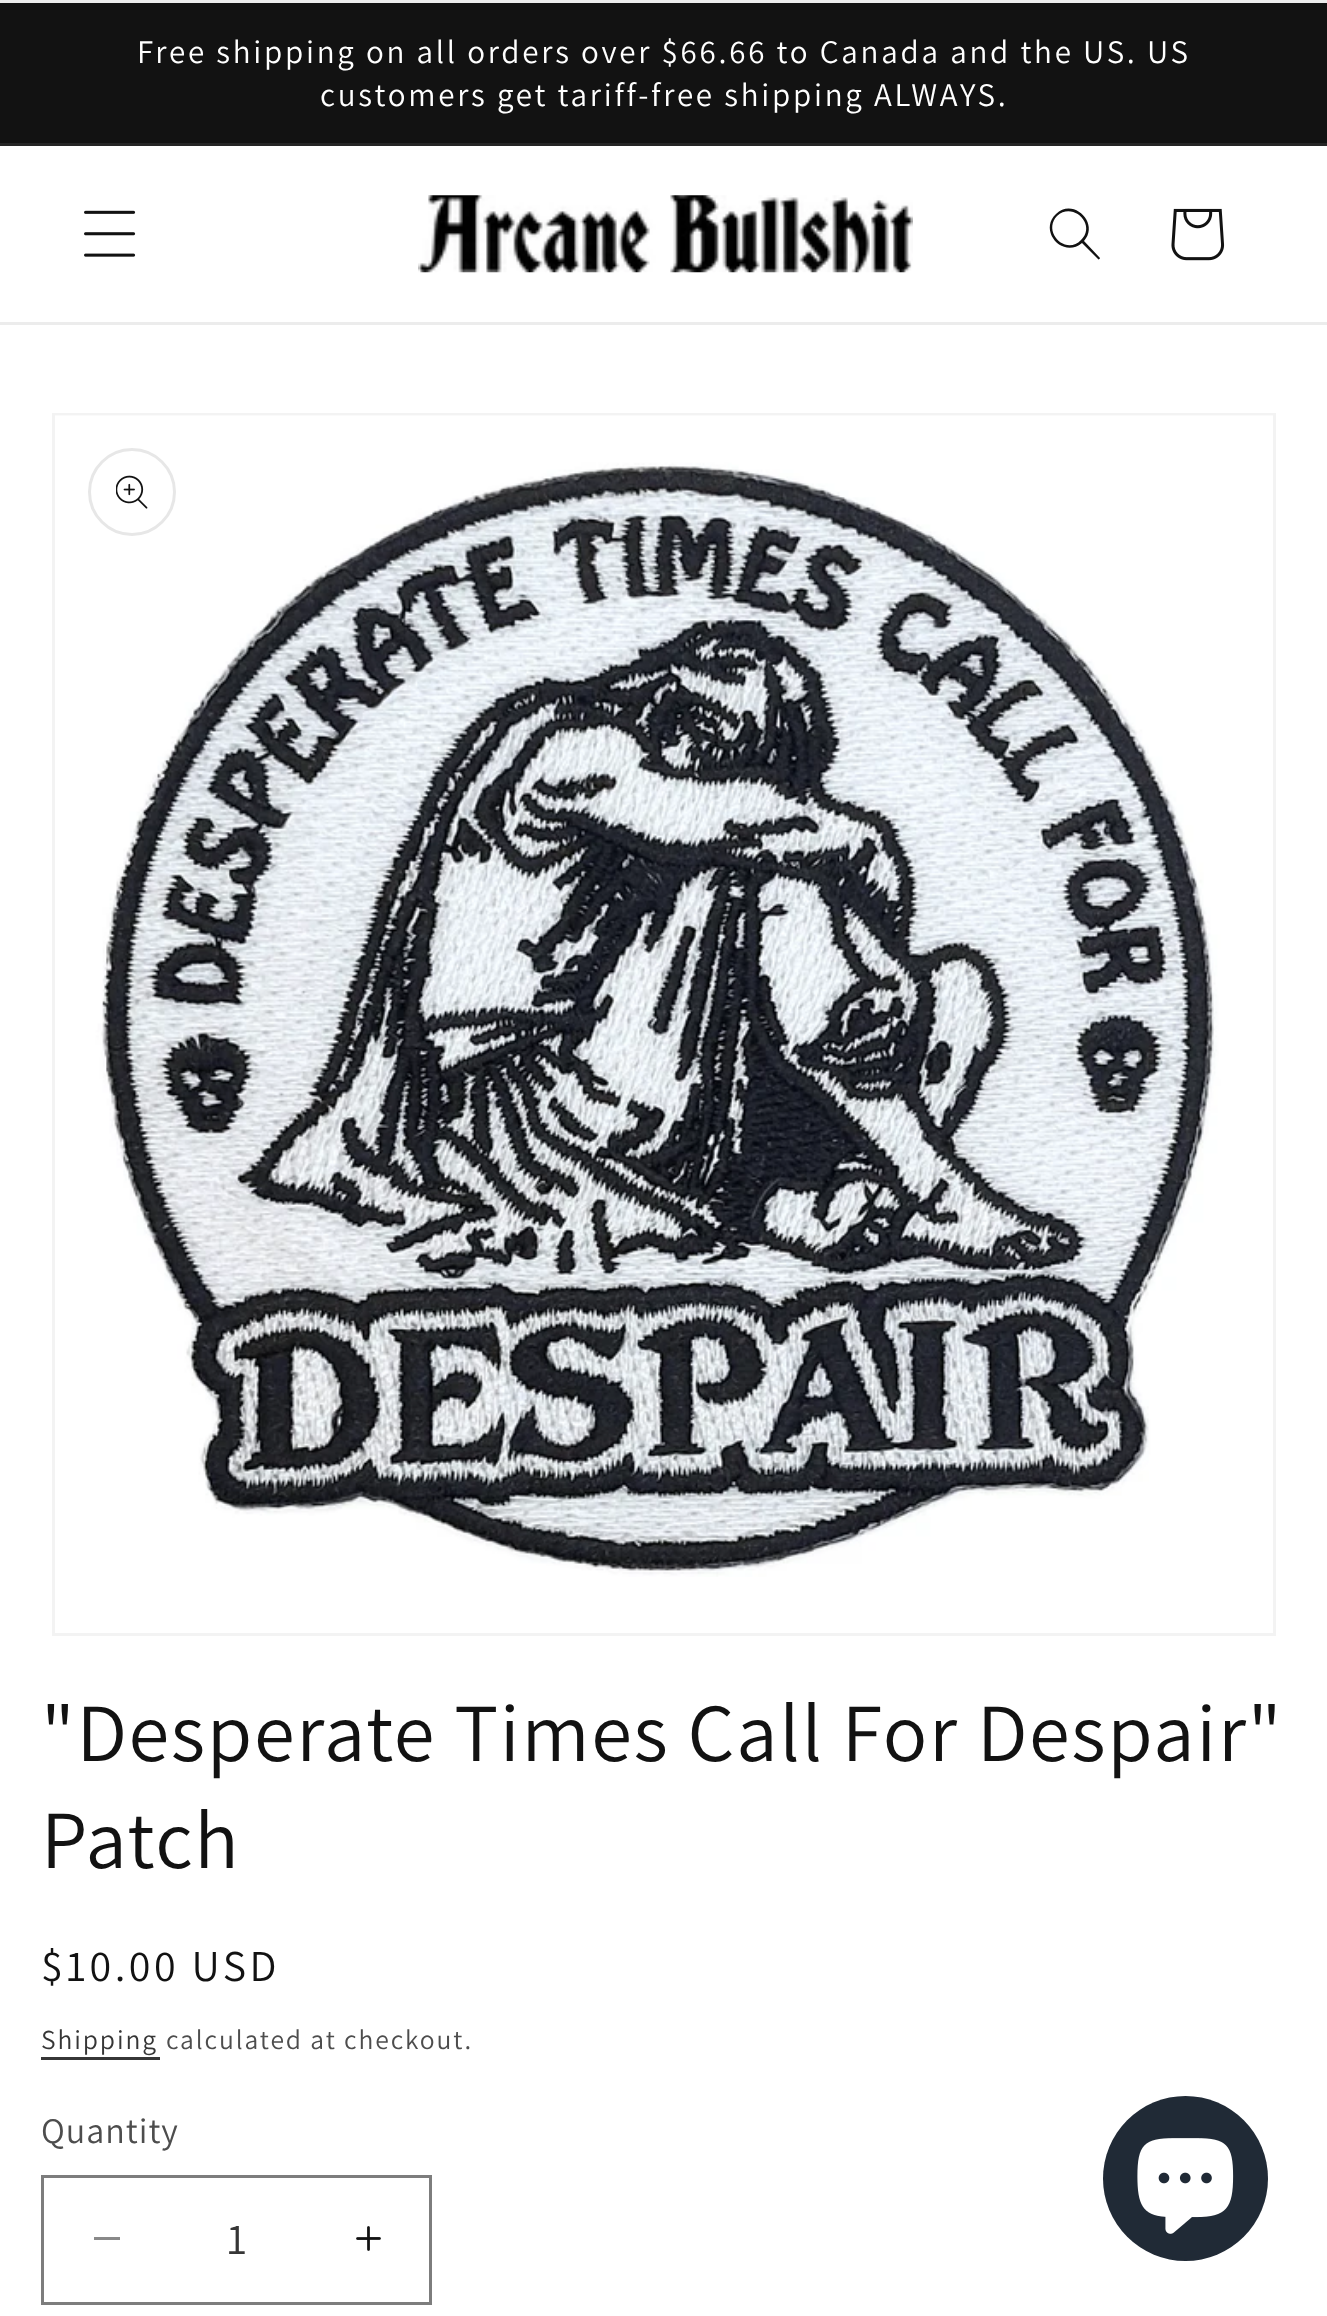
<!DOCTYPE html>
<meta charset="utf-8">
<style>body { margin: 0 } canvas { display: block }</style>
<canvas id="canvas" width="1327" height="2316"></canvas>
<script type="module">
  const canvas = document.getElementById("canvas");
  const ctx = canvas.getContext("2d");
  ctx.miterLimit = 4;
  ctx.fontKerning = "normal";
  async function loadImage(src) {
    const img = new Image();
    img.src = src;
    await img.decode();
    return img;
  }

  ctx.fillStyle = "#ffffff";
  ctx.fillRect(0, 0, 1327, 2316);
  ctx.fillStyle = "#ececec";
  ctx.fillRect(0, 0, 1327, 3);
  ctx.fillStyle = "#121212";
  ctx.fillRect(0, 3, 1327, 140);
  ctx.fillStyle = "#252525";
  ctx.fillRect(0, 143, 1327, 3);
  ctx.letterSpacing = "2.75px";
  ctx.font = "33px Assistant";
  ctx.fillStyle = "#ffffff";
  ctx.fillText("Free shipping on all orders over $66.66 to Canada and the US. US", 137, 63);
  ctx.fillText("customers get tariff-free shipping ALWAYS.", 320, 106);
  ctx.fillStyle = "#ececec";
  ctx.fillRect(0, 322, 1327, 3);
  ctx.drawImage(await loadImage("img1.png"), 84, 210, 52, 47);
  ctx.drawImage(await loadImage("img2.png"), 418, 195, 495, 78);
  ctx.fillStyle = "#121212";
  ctx.beginPath();
  ctx.moveTo(1081, 240);
  ctx.bezierCurveTo(1066, 256, 1042, 232, 1057, 216);
  ctx.bezierCurveTo(1073, 201, 1097, 225, 1081, 240);
  ctx.moveTo(1082, 243);
  ctx.bezierCurveTo(1063, 259, 1038, 231, 1056, 214);
  ctx.bezierCurveTo(1073, 197, 1100, 223, 1084, 241);
  ctx.lineTo(1100, 258);
  ctx.bezierCurveTo(1100, 259, 1098, 260, 1098, 259);
  ctx.closePath();
  ctx.fill("evenodd");
  ctx.drawImage(await loadImage("img3.png"), 1171, 208, 54, 53);
  ctx.strokeStyle = "#f3f3f3";
  ctx.lineWidth = 3;
  ctx.strokeRect(53.5, 414.5, 1221, 1220);
  ctx.drawImage(await loadImage("img4.png"), 55, 415, 1218, 1162);
  ctx.beginPath();
  ctx.arc(132, 492, 42.5, 0, Math.PI * 2);
  ctx.strokeStyle = "#e7e7e7";
  ctx.stroke();
  ctx.drawImage(await loadImage("img5.png"), 116, 475, 32, 34);
  ctx.letterSpacing = "1.65px";
  ctx.font = "82.5px Assistant";
  ctx.fillText("\"Desperate Times Call For Despair\"", 41, 1761);
  ctx.fillText("Patch", 41, 1868);
  ctx.letterSpacing = "3.5px";
  ctx.font = "44px Assistant";
  ctx.fillText("$10.00 USD", 41, 1981);
  ctx.letterSpacing = "1.9px";
  ctx.font = "27.5px Assistant";
  ctx.fillStyle = "#363636";
  ctx.fillText("Shipping", 41, 2049);
  ctx.fillRect(41, 2057, 119, 3);
  ctx.fillStyle = "#4d4d4d";
  ctx.fillText("calculated at checkout.", 166, 2049);
  ctx.letterSpacing = "1px";
  ctx.font = "36px Assistant";
  ctx.fillText("Quantity", 41, 2143);
  ctx.fillStyle = "#898989";
  ctx.fillRect(94, 2237, 26, 3);
  ctx.drawImage(await loadImage("img6.png"), 356, 2226, 25, 25);
  ctx.strokeStyle = "#7d7d7d";
  ctx.strokeRect(42.5, 2176.5, 388, 127);
  ctx.letterSpacing = "0px";
  ctx.font = "44px Assistant";
  ctx.fillStyle = "#363636";
  ctx.fillText("1", 227, 2254);
  ctx.fillStyle = "#202a36";
  ctx.beginPath();
  ctx.arc(1185.5, 2178.5, 82.5, 0, Math.PI * 2);
  ctx.fill();
  ctx.drawImage(await loadImage("img7.png"), 1137, 2138, 97, 96);
</script>
